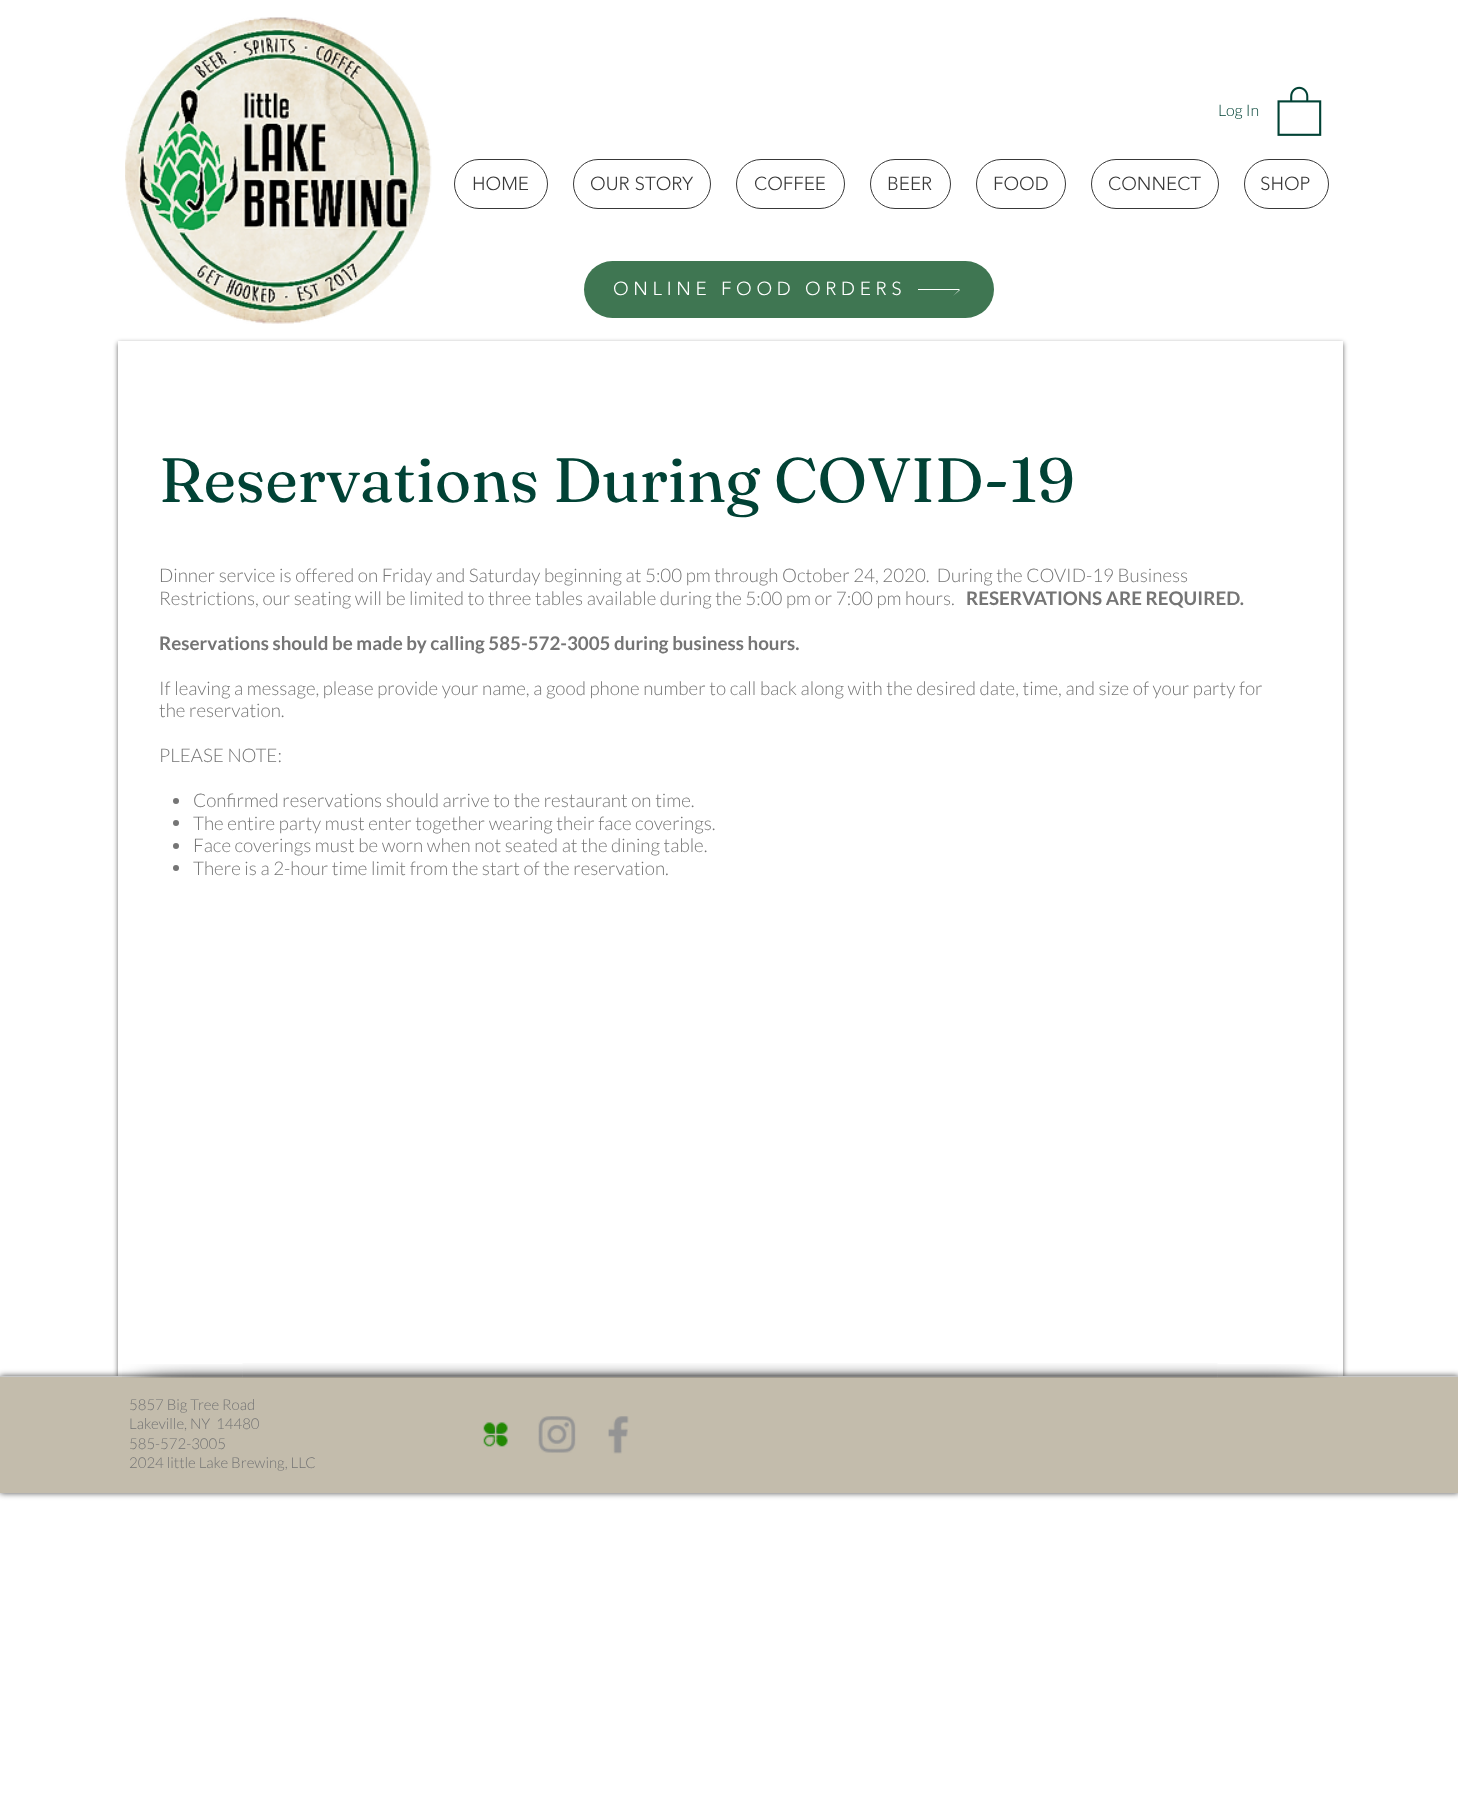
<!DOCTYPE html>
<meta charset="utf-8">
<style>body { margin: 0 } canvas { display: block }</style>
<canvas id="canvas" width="1458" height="1814"></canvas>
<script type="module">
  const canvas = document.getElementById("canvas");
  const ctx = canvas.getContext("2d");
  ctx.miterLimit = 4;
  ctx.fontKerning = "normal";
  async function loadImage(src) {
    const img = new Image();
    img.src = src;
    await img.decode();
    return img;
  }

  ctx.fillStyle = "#ffffff";
  ctx.fillRect(0, 0, 1458, 1814);
  ctx.drawImage(await loadImage("img1.png"), 125, 17, 307, 307);
  ctx.font = "300 16px Lato";
  ctx.fillStyle = "#014235";
  ctx.fillText("Log In", 1218, 116);
  ctx.drawImage(await loadImage("img2.png"), 1277, 86, 45, 50);
  ctx.beginPath();
  ctx.roundRect(454.5, 159.5, 93, 49, 24.5);
  ctx.strokeStyle = "#383838";
  ctx.stroke();
  ctx.font = "300 18.75px 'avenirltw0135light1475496'";
  ctx.fillStyle = "#383838";
  ctx.fillText("HOME", 472, 190);
  ctx.beginPath();
  ctx.roundRect(573.5, 159.5, 137, 49, 24.5);
  ctx.stroke();
  ctx.fillText("OUR STORY", 590, 190);
  ctx.beginPath();
  ctx.roundRect(736.5, 159.5, 108, 49, 24.5);
  ctx.stroke();
  ctx.fillText("COFFEE", 754, 190);
  ctx.beginPath();
  ctx.roundRect(870.5, 159.5, 80, 49, 24.5);
  ctx.stroke();
  ctx.fillText("BEER", 887, 190);
  ctx.beginPath();
  ctx.roundRect(976.5, 159.5, 89, 49, 24.5);
  ctx.stroke();
  ctx.fillText("FOOD", 993, 190);
  ctx.beginPath();
  ctx.roundRect(1091.5, 159.5, 127, 49, 24.5);
  ctx.stroke();
  ctx.fillText("CONNECT", 1108, 190);
  ctx.beginPath();
  ctx.roundRect(1244.5, 159.5, 84, 49, 24.5);
  ctx.stroke();
  ctx.fillText("SHOP", 1260, 190);
  ctx.fillStyle = "#3f7652";
  ctx.beginPath();
  ctx.roundRect(584, 261, 410, 57, 28.5);
  ctx.fill();
  ctx.letterSpacing = "4.7px";
  ctx.fillStyle = "#ffffff";
  ctx.fillText("ONLINE FOOD ORDERS", 613, 295);
  ctx.beginPath();
  ctx.moveTo(953, 283);
  ctx.lineTo(959, 289);
  ctx.lineTo(918, 289);
  ctx.lineTo(918, 290);
  ctx.lineTo(959, 290);
  ctx.lineTo(953, 296);
  ctx.lineTo(960, 290);
  ctx.closePath();
  ctx.fill();
  ctx.fillStyle = "rgba(0, 0, 0, 0.6)";
  ctx.filter = "blur(2.5px)";
  ctx.beginPath();
  ctx.rect(118, 343, 1225, 1035);
  ctx.fill();
  ctx.filter = "none";
  ctx.fillStyle = "#ffffff";
  ctx.fillRect(118, 341, 1225, 1035);
  ctx.letterSpacing = "0px";
  ctx.font = "62.5px Fraunces";
  ctx.fillStyle = "#014235";
  ctx.fillText("Reservations During COVID-19", 159, 502);
  ctx.font = "300 18.75px Lato";
  ctx.fillStyle = "#757575";
  ctx.fillText("Dinner service is offered on Friday and Saturday beginning at 5:00 pm through October 24, 2020.  During the COVID-19 Business", 159, 582);
  ctx.fillText("Restrictions, our seating will be limited to three tables available during the 5:00 pm or 7:00 pm hours.", 159, 605);
  ctx.font = "bold 18.75px Lato";
  ctx.fillText("RESERVATIONS ARE REQUIRED.", 966, 605);
  ctx.fillText("Reservations should be made by calling 585-572-3005 during business hours.", 159, 650);
  ctx.font = "300 18.75px Lato";
  ctx.fillText("If leaving a message, please provide your name, a good phone number to call back along with the desired date, time, and size of your party for", 159, 695);
  ctx.fillText("the reservation.", 159, 717);
  ctx.fillText("PLEASE NOTE:", 159, 762);
  ctx.beginPath();
  ctx.arc(176, 801, 3, 0, Math.PI * 2);
  ctx.fill();
  ctx.fillText("Confirmed reservations should arrive to the restaurant on time.", 193, 807);
  ctx.beginPath();
  ctx.arc(176, 823, 3, 0, Math.PI * 2);
  ctx.fill();
  ctx.fillText("The entire party must enter together wearing their face coverings.", 193, 830);
  ctx.beginPath();
  ctx.arc(176, 846, 3, 0, Math.PI * 2);
  ctx.fill();
  ctx.fillText("Face coverings must be worn when not seated at the dining table.", 193, 852);
  ctx.beginPath();
  ctx.arc(176, 868, 3, 0, Math.PI * 2);
  ctx.fill();
  ctx.fillText("There is a 2-hour time limit from the start of the reservation.", 193, 875);
  ctx.fillStyle = "rgba(0, 0, 0, 0.7)";
  ctx.filter = "blur(3px)";
  ctx.beginPath();
  ctx.rect(0, 1376, 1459, 117);
  ctx.fill();
  ctx.filter = "none";
  ctx.fillStyle = "#c3bcac";
  ctx.fillRect(0, 1377, 1458, 116);
  ctx.fillStyle = "#c7c7c7";
  ctx.fillRect(0, 1376, 1458, 1);
  ctx.drawImage(await loadImage("img3.png"), 122, 1364, 121, 14);
  ctx.drawImage(await loadImage("img4.png"), 242, 1363, 976, 15);
  ctx.drawImage(await loadImage("img5.png"), 1217, 1364, 121, 14);
  ctx.font = "300 15px Lato";
  ctx.fillStyle = "#757575";
  ctx.fillText("5857 Big Tree Road", 129, 1410);
  ctx.fillText("Lakeville, NY  14480", 129, 1429);
  ctx.fillText("585-572-3005", 129, 1449);
  ctx.fillText("2024 little Lake Brewing, LLC", 129, 1468);
  ctx.drawImage(await loadImage("img6.png"), 483, 1422, 25, 25);
  ctx.drawImage(await loadImage("img7.png"), 538, 1416, 38, 37);
  ctx.drawImage(await loadImage("img8.png"), 608, 1416, 21, 38);
</script>
